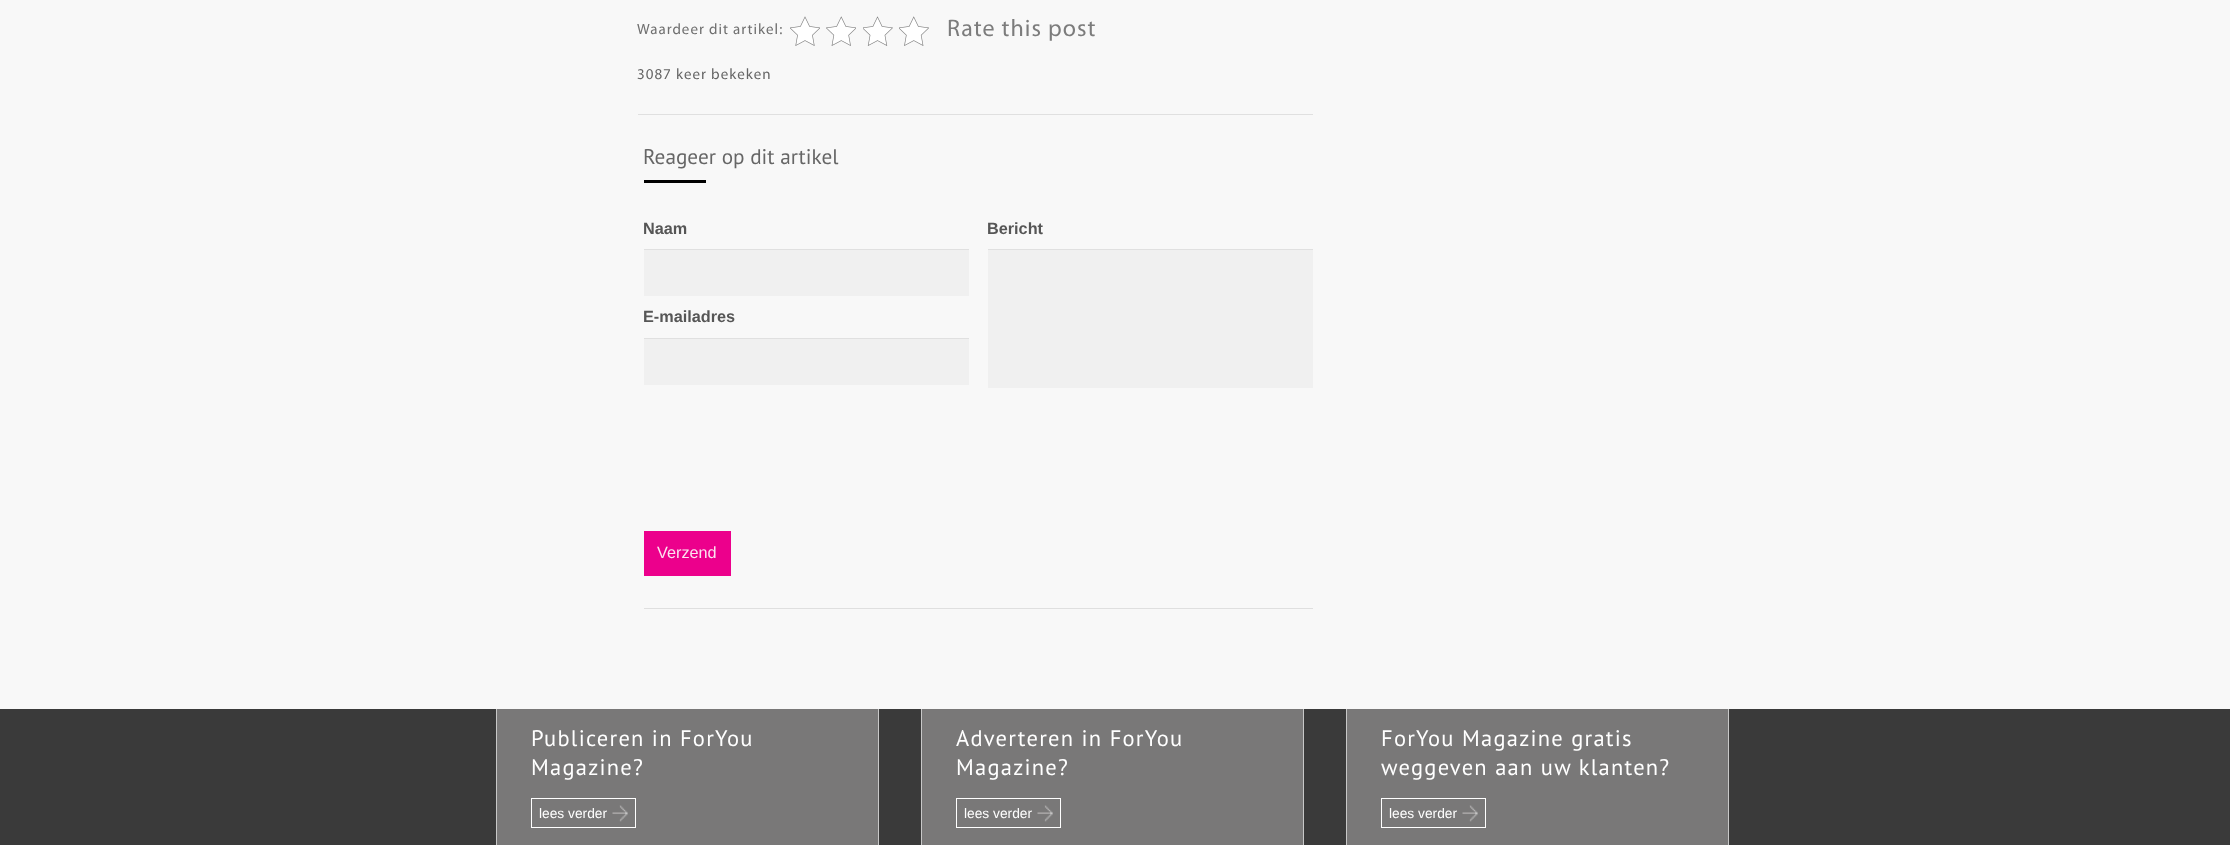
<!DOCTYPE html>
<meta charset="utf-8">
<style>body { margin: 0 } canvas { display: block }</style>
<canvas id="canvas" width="2230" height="845"></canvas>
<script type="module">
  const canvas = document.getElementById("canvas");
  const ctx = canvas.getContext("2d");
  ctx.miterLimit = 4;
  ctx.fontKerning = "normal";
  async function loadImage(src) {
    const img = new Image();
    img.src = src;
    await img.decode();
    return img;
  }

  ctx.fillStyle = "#f8f8f8";
  ctx.fillRect(0, 0, 2230, 845);
  ctx.fillStyle = "#e0e0e0";
  ctx.fillRect(638, 114, 675, 1);
  ctx.letterSpacing = "1px";
  ctx.font = "15px Myriad";
  ctx.fillStyle = "#6f6f6f";
  ctx.fillText("Waardeer dit artikel:", 637, 34);
  ctx.drawImage(await loadImage("img1.png"), 790, 16, 30, 30);
  ctx.drawImage(await loadImage("img2.png"), 826, 16, 30, 30);
  ctx.drawImage(await loadImage("img3.png"), 863, 16, 30, 30);
  ctx.drawImage(await loadImage("img4.png"), 899, 16, 30, 30);
  ctx.font = "24px Myriad";
  ctx.fillStyle = "#7c7c7c";
  ctx.fillText("Rate this post", 947, 36);
  ctx.font = "15px Myriad";
  ctx.fillStyle = "#666666";
  ctx.fillText("3087 keer bekeken", 637, 79);
  ctx.letterSpacing = "0px";
  ctx.font = "21.25px PT Sans";
  ctx.fillText("Reageer op dit artikel", 643, 164);
  ctx.fillStyle = "#000000";
  ctx.fillRect(644, 180, 62, 3);
  ctx.fillStyle = "#dfdfdf";
  ctx.fillRect(644, 608, 669, 1);
  ctx.font = "bold 16.25px Liberation Sans";
  ctx.fillStyle = "#565656";
  ctx.fillText("Naam", 643, 234);
  ctx.fillStyle = "#f0f0f0";
  ctx.fillRect(644, 250, 325, 46);
  ctx.fillStyle = "#e0e0e0";
  ctx.fillRect(644, 249, 325, 1);
  ctx.fillStyle = "#565656";
  ctx.fillText("E-mailadres", 643, 322);
  ctx.fillStyle = "#f0f0f0";
  ctx.fillRect(644, 339, 325, 46);
  ctx.fillStyle = "#e0e0e0";
  ctx.fillRect(644, 338, 325, 1);
  ctx.fillStyle = "#565656";
  ctx.fillText("Bericht", 987, 234);
  ctx.fillStyle = "#f0f0f0";
  ctx.fillRect(988, 250, 325, 138);
  ctx.fillStyle = "#e0e0e0";
  ctx.fillRect(988, 249, 325, 1);
  ctx.fillStyle = "#ec008c";
  ctx.fillRect(644, 531, 87, 45);
  ctx.font = "16.25px Liberation Sans";
  ctx.fillStyle = "#fbe3ef";
  ctx.fillText("Verzend", 657, 558);
  ctx.fillStyle = "#3a3a3a";
  ctx.fillRect(0, 709, 2230, 136);
  ctx.fillStyle = "#797878";
  ctx.fillRect(497, 709, 381, 136);
  ctx.fillStyle = "#c8c8c8";
  ctx.fillRect(878, 709, 1, 136);
  ctx.fillRect(496, 709, 1, 136);
  ctx.letterSpacing = "1.25px";
  ctx.font = "22.5px PT Sans";
  ctx.fillStyle = "#ffffff";
  ctx.fillText("Publiceren in ForYou", 531, 746);
  ctx.fillText("Magazine?", 531, 775);
  ctx.drawImage(await loadImage("img5.png"), 612, 805, 16, 17);
  ctx.strokeStyle = "#ffffff";
  ctx.strokeRect(531.5, 798.5, 104, 29);
  ctx.letterSpacing = "0px";
  ctx.font = "13.75px Liberation Sans";
  ctx.fillText("lees verder", 539, 818);
  ctx.fillStyle = "#797878";
  ctx.fillRect(922, 709, 381, 136);
  ctx.fillStyle = "#c8c8c8";
  ctx.fillRect(1303, 709, 1, 136);
  ctx.fillRect(921, 709, 1, 136);
  ctx.letterSpacing = "1.25px";
  ctx.font = "22.5px PT Sans";
  ctx.fillStyle = "#ffffff";
  ctx.fillText("Adverteren in ForYou", 956, 746);
  ctx.fillText("Magazine?", 956, 775);
  ctx.drawImage(await loadImage("img6.png"), 1037, 805, 16, 17);
  ctx.strokeRect(956.5, 798.5, 104, 29);
  ctx.letterSpacing = "0px";
  ctx.font = "13.75px Liberation Sans";
  ctx.fillText("lees verder", 964, 818);
  ctx.fillStyle = "#797878";
  ctx.fillRect(1347, 709, 381, 136);
  ctx.fillStyle = "#c8c8c8";
  ctx.fillRect(1728, 709, 1, 136);
  ctx.fillRect(1346, 709, 1, 136);
  ctx.letterSpacing = "1.25px";
  ctx.font = "22.5px PT Sans";
  ctx.fillStyle = "#ffffff";
  ctx.fillText("ForYou Magazine gratis", 1381, 746);
  ctx.fillText("weggeven aan uw klanten?", 1381, 775);
  ctx.drawImage(await loadImage("img5.png"), 1462, 805, 16, 17);
  ctx.strokeRect(1381.5, 798.5, 104, 29);
  ctx.letterSpacing = "0px";
  ctx.font = "13.75px Liberation Sans";
  ctx.fillText("lees verder", 1389, 818);
</script>
